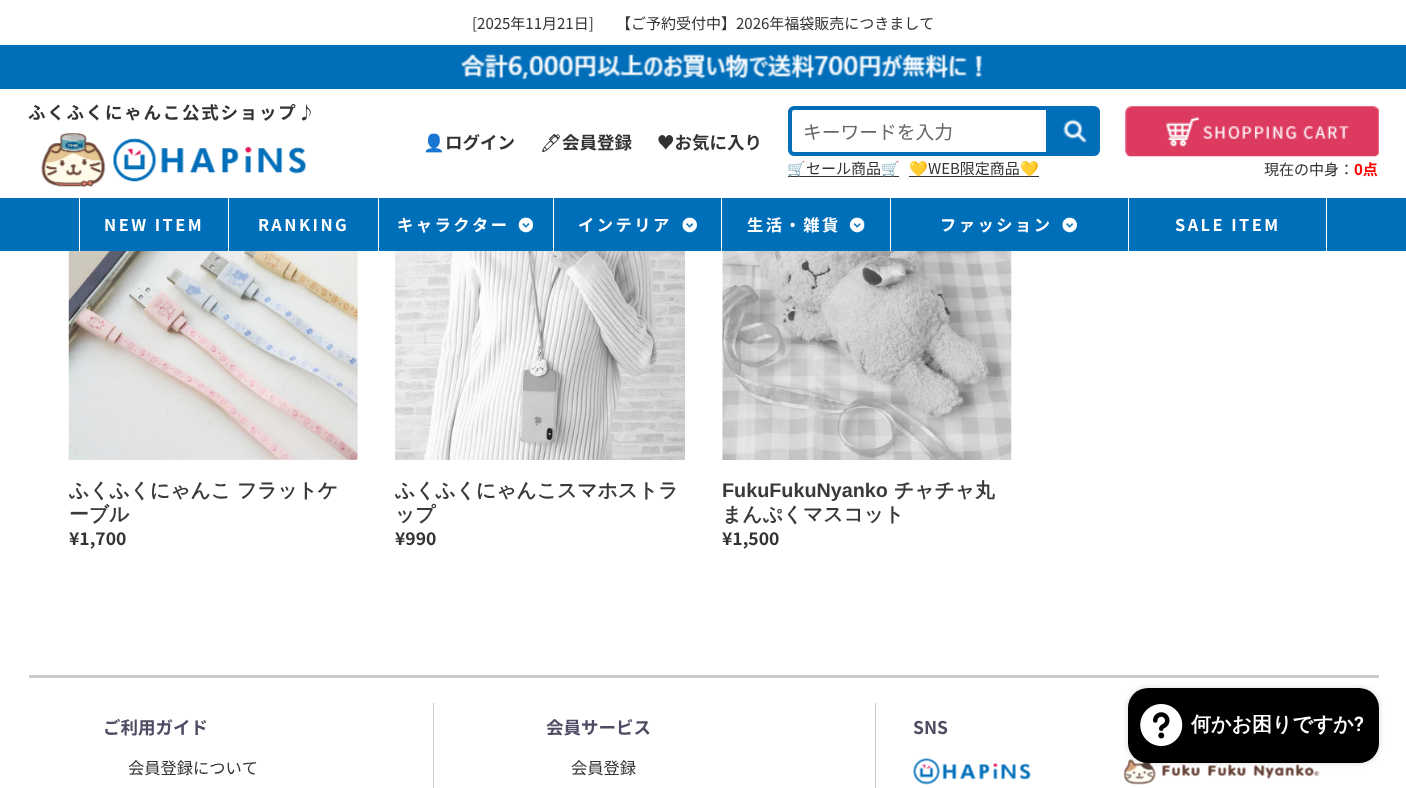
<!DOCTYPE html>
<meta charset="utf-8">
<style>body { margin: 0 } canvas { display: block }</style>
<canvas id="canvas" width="1406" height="788"></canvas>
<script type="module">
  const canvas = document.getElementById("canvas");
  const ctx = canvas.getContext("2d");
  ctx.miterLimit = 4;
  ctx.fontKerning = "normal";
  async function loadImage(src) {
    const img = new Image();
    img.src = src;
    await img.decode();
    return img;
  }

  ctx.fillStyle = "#ffffff";
  ctx.fillRect(0, 0, 1406, 788);
  ctx.font = "15px Noto Sans JP";
  ctx.fillStyle = "#333333";
  ctx.fillText("[2025年11月21日]", 472, 29);
  ctx.fillText("【ご予約受付中】2026年福袋販売につきまして", 616, 29);
  ctx.fillStyle = "#006eb9";
  ctx.fillRect(0, 45, 1406, 44);
  ctx.drawImage(await loadImage("img1.png"), 460, 53, 522, 27);
  ctx.letterSpacing = "1.75px";
  ctx.font = "bold 17.5px Noto Sans JP";
  ctx.fillStyle = "#333333";
  ctx.fillText("ふくふくにゃんこ公式ショップ♪", 28, 119);
  ctx.drawImage(await loadImage("img2.png"), 41, 133, 265, 55);
  ctx.letterSpacing = "0px";
  ctx.font = "bold 17.5px Noto Color Emoji";
  ctx.fillText("👤", 423, 149);
  ctx.font = "bold 17.5px Noto Sans JP";
  ctx.fillText("ログイン", 445, 149);
  ctx.font = "bold 17.5px Noto Emoji";
  ctx.fillText("🖊", 540, 149);
  ctx.font = "bold 17.5px Noto Sans JP";
  ctx.fillText("会員登録", 562, 149);
  ctx.fillText("♥お気に入り", 657, 149);
  ctx.beginPath();
  ctx.roundRect(790, 108, 258, 46, [4, 0, 0, 4]);
  ctx.strokeStyle = "#006eb9";
  ctx.lineWidth = 4;
  ctx.stroke();
  ctx.font = "18.75px Noto Sans JP";
  ctx.fillStyle = "#666666";
  ctx.fillText("キーワードを入力", 803, 139);
  ctx.fillStyle = "#006eb9";
  ctx.beginPath();
  ctx.roundRect(1050, 106, 50, 50, [0, 6, 6, 0]);
  ctx.fill();
  ctx.drawImage(await loadImage("img3.png"), 1063, 119, 24, 25);
  ctx.fillStyle = "#333333";
  ctx.fillRect(788, 176, 111, 1);
  ctx.font = "15px Noto Color Emoji";
  ctx.fillText("🛒", 787, 174);
  ctx.font = "15px Noto Sans JP";
  ctx.fillText("セール商品", 806, 174);
  ctx.font = "15px Noto Color Emoji";
  ctx.fillText("🛒", 881, 174);
  ctx.fillRect(909, 176, 130, 1);
  ctx.fillText("💛", 909, 174);
  ctx.font = "15px Noto Sans JP";
  ctx.fillText("WEB限定商品", 928, 174);
  ctx.font = "15px Noto Color Emoji";
  ctx.fillText("💛", 1020, 174);
  ctx.drawImage(await loadImage("img4.png"), 1124, 106, 255, 51);
  ctx.font = "15px Noto Sans JP";
  ctx.fillText("現在の中身：", 1264, 175);
  ctx.font = "bold 15px Noto Sans JP";
  ctx.fillStyle = "#ff0000";
  ctx.fillText("0点", 1354, 175);
  ctx.fillStyle = "#006fba";
  ctx.fillRect(0, 198, 1406, 53);
  ctx.fillStyle = "#ffffff";
  ctx.fillRect(79, 198, 1, 53);
  ctx.fillRect(228, 198, 1, 53);
  ctx.letterSpacing = "2.5px";
  ctx.font = "bold 16.25px Noto Sans JP";
  ctx.fillText("NEW ITEM", 104, 231);
  ctx.fillRect(378, 198, 1, 53);
  ctx.fillText("RANKING", 258, 231);
  ctx.fillRect(553, 198, 1, 53);
  ctx.drawImage(await loadImage("img5.png"), 518, 217, 15, 16);
  ctx.fillText("キャラクター", 397, 231);
  ctx.fillRect(721, 198, 1, 53);
  ctx.drawImage(await loadImage("img6.png"), 682, 217, 15, 16);
  ctx.fillText("インテリア", 578, 231);
  ctx.fillRect(890, 198, 1, 53);
  ctx.drawImage(await loadImage("img7.png"), 849, 217, 16, 16);
  ctx.fillText("生活・雑貨", 747, 231);
  ctx.fillRect(1128, 198, 1, 53);
  ctx.drawImage(await loadImage("img6.png"), 1062, 217, 15, 16);
  ctx.fillText("ファッション", 940, 231);
  ctx.fillRect(1326, 198, 1, 53);
  ctx.fillText("SALE ITEM", 1175, 231);
  ctx.drawImage(await loadImage("img8.png"), 68, 251, 290, 209);
  ctx.letterSpacing = "0px";
  ctx.font = "bold 19.8px WenQuanYi Zen Hei";
  ctx.fillStyle = "#3a3a3a";
  ctx.fillText("ふくふくにゃんこ フラットケ", 69, 497);
  ctx.fillText("ーブル", 69, 521);
  ctx.font = "bold 17.5px Noto Sans JP";
  ctx.fillStyle = "#333333";
  ctx.fillText("¥1,700", 69, 545);
  ctx.drawImage(await loadImage("img9.png"), 395, 251, 290, 209);
  ctx.font = "bold 19.8px WenQuanYi Zen Hei";
  ctx.fillStyle = "#3a3a3a";
  ctx.fillText("ふくふくにゃんこスマホストラ", 395, 497);
  ctx.fillText("ップ", 395, 521);
  ctx.font = "bold 17.5px Noto Sans JP";
  ctx.fillStyle = "#333333";
  ctx.fillText("¥990", 395, 545);
  ctx.drawImage(await loadImage("img10.png"), 722, 251, 290, 209);
  ctx.font = "bold 19.8px Liberation Sans";
  ctx.fillStyle = "#3a3a3a";
  ctx.fillText("FukuFukuNyanko", 722, 497);
  ctx.font = "bold 19.8px WenQuanYi Zen Hei";
  ctx.fillText("チャチャ丸", 894, 497);
  ctx.fillText("まんぷくマスコット", 722, 521);
  ctx.font = "bold 17.5px Noto Sans JP";
  ctx.fillStyle = "#333333";
  ctx.fillText("¥1,500", 722, 545);
  ctx.fillStyle = "#cccccc";
  ctx.fillRect(29, 675, 1350, 3);
  ctx.fillRect(433, 703, 1, 85);
  ctx.fillStyle = "#4e4c63";
  ctx.fillText("ご利用ガイド", 103, 734);
  ctx.font = "16.25px Noto Sans JP";
  ctx.fillStyle = "#333333";
  ctx.fillText("会員登録について", 128, 774);
  ctx.fillStyle = "#cccccc";
  ctx.fillRect(875, 703, 1, 85);
  ctx.font = "bold 17.5px Noto Sans JP";
  ctx.fillStyle = "#4e4c63";
  ctx.fillText("会員サービス", 546, 734);
  ctx.font = "16.25px Noto Sans JP";
  ctx.fillStyle = "#333333";
  ctx.fillText("会員登録", 571, 774);
  ctx.font = "bold 17.5px Noto Sans JP";
  ctx.fillStyle = "#4e4c63";
  ctx.fillText("SNS", 913, 734);
  ctx.drawImage(await loadImage("img11.png"), 913, 758, 118, 27);
  ctx.drawImage(await loadImage("img12.png"), 1123, 759, 197, 26);
  ctx.fillStyle = "rgba(0, 0, 0, 0.15)";
  ctx.filter = "blur(3px)";
  ctx.beginPath();
  ctx.roundRect(1128, 688, 251, 75, 20);
  ctx.fill();
  ctx.filter = "none";
  ctx.fillStyle = "#000000";
  ctx.beginPath();
  ctx.roundRect(1128, 688, 251, 75, 20);
  ctx.fill();
  ctx.drawImage(await loadImage("img13.png"), 1140, 704, 43, 42);
  ctx.font = "bold 20px WenQuanYi Zen Hei";
  ctx.fillStyle = "#ffffff";
  ctx.fillText("何かお困りですか", 1191, 731);
  ctx.font = "600 20px Roboto";
  ctx.fillText("?", 1354, 731);
</script>
